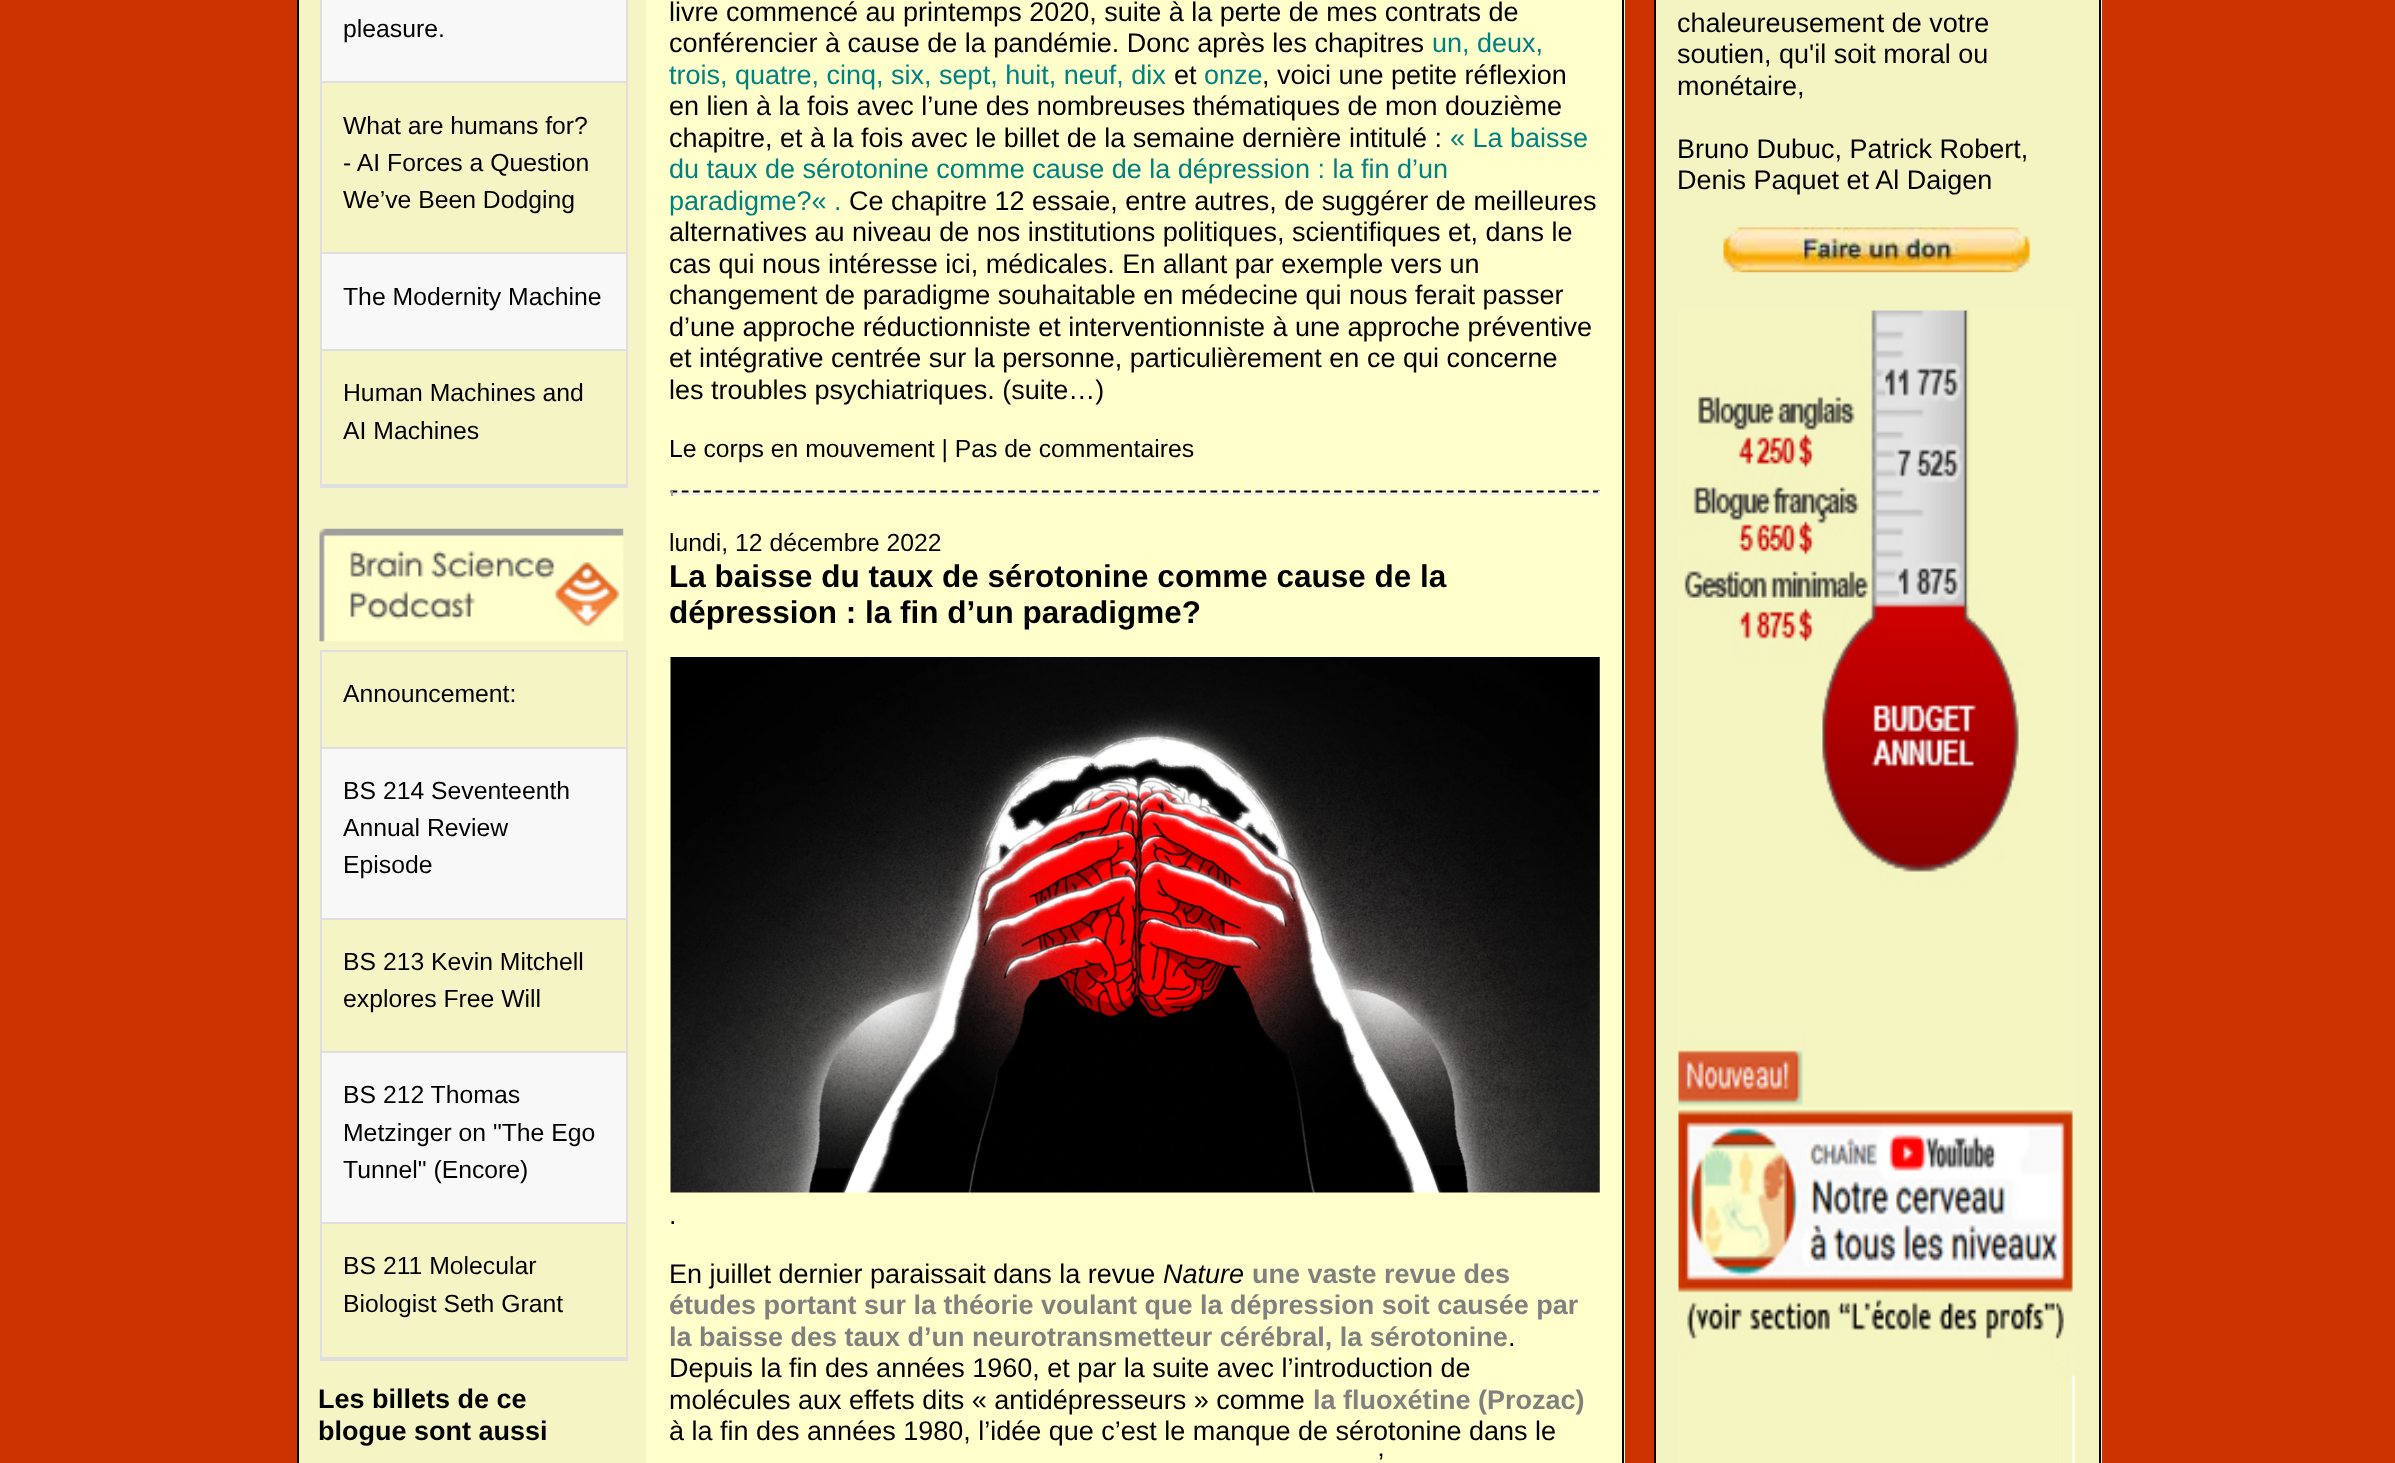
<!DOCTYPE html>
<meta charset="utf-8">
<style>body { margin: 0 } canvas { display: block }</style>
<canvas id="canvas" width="2395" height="1463"></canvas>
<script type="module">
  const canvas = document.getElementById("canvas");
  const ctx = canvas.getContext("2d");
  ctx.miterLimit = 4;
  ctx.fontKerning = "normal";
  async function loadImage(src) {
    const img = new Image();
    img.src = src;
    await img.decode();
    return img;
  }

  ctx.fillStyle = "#cc3300";
  ctx.fillRect(0, 0, 2395, 1463);
  ctx.fillStyle = "#f5f4c4";
  ctx.fillRect(299, 0, 347, 1463);
  ctx.strokeStyle = "#dfdfdf";
  ctx.lineWidth = 2;
  ctx.strokeRect(321, -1, 306, 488);
  ctx.fillStyle = "#f8f8f8";
  ctx.fillRect(322, 0, 304, 81);
  ctx.fillStyle = "#dfdfdf";
  ctx.fillRect(322, 81, 304, 2);
  ctx.font = "24.75px Liberation Sans";
  ctx.fillStyle = "#000000";
  ctx.fillText("pleasure.", 343, 37);
  ctx.fillStyle = "#dfdfdf";
  ctx.fillRect(322, 252, 304, 2);
  ctx.fillStyle = "#000000";
  ctx.fillText("What are humans for?", 343, 134);
  ctx.fillText("- AI Forces a Question", 343, 171);
  ctx.fillText("We’ve Been Dodging", 343, 208);
  ctx.fillStyle = "#f8f8f8";
  ctx.fillRect(322, 254, 304, 95);
  ctx.fillStyle = "#dfdfdf";
  ctx.fillRect(322, 349, 304, 2);
  ctx.fillStyle = "#000000";
  ctx.fillText("The Modernity Machine", 343, 305);
  ctx.fillStyle = "#dfdfdf";
  ctx.fillRect(322, 484, 304, 2);
  ctx.fillStyle = "#000000";
  ctx.fillText("Human Machines and", 343, 401);
  ctx.fillText("AI Machines", 343, 439);
  ctx.drawImage(await loadImage("img1.png"), 319, 528, 305, 114);
  ctx.strokeRect(321, 651, 306, 709);
  ctx.fillStyle = "#dfdfdf";
  ctx.fillRect(322, 747, 304, 2);
  ctx.fillStyle = "#000000";
  ctx.fillText("Announcement:", 343, 702);
  ctx.fillStyle = "#f8f8f8";
  ctx.fillRect(322, 749, 304, 169);
  ctx.fillStyle = "#dfdfdf";
  ctx.fillRect(322, 918, 304, 2);
  ctx.fillStyle = "#000000";
  ctx.fillText("BS 214 Seventeenth", 343, 799);
  ctx.fillText("Annual Review", 343, 836);
  ctx.fillText("Episode", 343, 873);
  ctx.fillStyle = "#dfdfdf";
  ctx.fillRect(322, 1051, 304, 2);
  ctx.fillStyle = "#000000";
  ctx.fillText("BS 213 Kevin Mitchell", 343, 970);
  ctx.fillText("explores Free Will", 343, 1007);
  ctx.fillStyle = "#f8f8f8";
  ctx.fillRect(322, 1053, 304, 169);
  ctx.fillStyle = "#dfdfdf";
  ctx.fillRect(322, 1222, 304, 2);
  ctx.fillStyle = "#000000";
  ctx.fillText("BS 212 Thomas", 343, 1103);
  ctx.fillText("Metzinger on \"The Ego", 343, 1141);
  ctx.fillText("Tunnel\" (Encore)", 343, 1178);
  ctx.fillStyle = "#dfdfdf";
  ctx.fillRect(322, 1357, 304, 2);
  ctx.fillStyle = "#000000";
  ctx.fillText("BS 211 Molecular", 343, 1274);
  ctx.fillText("Biologist Seth Grant", 343, 1312);
  ctx.font = "bold 27px Liberation Sans";
  ctx.fillText("Les billets de ce", 318, 1408);
  ctx.fillText("blogue sont aussi", 318, 1440);
  ctx.fillStyle = "#ffffcc";
  ctx.fillRect(646, 0, 979, 1463);
  ctx.fillStyle = "#000000";
  ctx.fillRect(1622, 0, 2, 1463);
  ctx.fillRect(297, 0, 2, 1463);
  ctx.font = "27px Liberation Sans";
  ctx.fillText("livre commencé au printemps 2020, suite à la perte de mes contrats de", 669, 21);
  ctx.fillText("conférencier à cause de la pandémie. Donc après les chapitres", 669, 52);
  ctx.fillStyle = "#008080";
  ctx.fillText("un, deux,", 1432, 52);
  ctx.fillText("trois, quatre, cinq, six, sept, huit, neuf, dix", 669, 84);
  ctx.fillStyle = "#000000";
  ctx.fillText("et", 1174, 84);
  ctx.fillStyle = "#008080";
  ctx.fillText("onze", 1204, 84);
  ctx.fillStyle = "#000000";
  ctx.fillText(", voici une petite réflexion", 1262, 84);
  ctx.fillText("en lien à la fois avec l’une des nombreuses thématiques de mon douzième", 669, 115);
  ctx.fillText("chapitre, et à la fois avec le billet de la semaine dernière intitulé :", 669, 147);
  ctx.fillStyle = "#008080";
  ctx.fillText("« La baisse", 1450, 147);
  ctx.fillText("du taux de sérotonine comme cause de la dépression : la fin d’un", 669, 178);
  ctx.fillText("paradigme?« .", 669, 210);
  ctx.fillStyle = "#000000";
  ctx.fillText("Ce chapitre 12 essaie, entre autres, de suggérer de meilleures", 849, 210);
  ctx.fillText("alternatives au niveau de nos institutions politiques, scientifiques et, dans le", 669, 241);
  ctx.fillText("cas qui nous intéresse ici, médicales. En allant par exemple vers un", 669, 273);
  ctx.fillText("changement de paradigme souhaitable en médecine qui nous ferait passer", 669, 304);
  ctx.fillText("d’une approche réductionniste et interventionniste à une approche préventive", 669, 336);
  ctx.fillText("et intégrative centrée sur la personne, particulièrement en ce qui concerne", 669, 367);
  ctx.fillText("les troubles psychiatriques. (suite…)", 669, 399);
  ctx.font = "24.75px Liberation Sans";
  ctx.fillText("Le corps en mouvement | Pas de commentaires", 669, 457);
  ctx.beginPath();
  ctx.moveTo(670.5, 491.5);
  ctx.lineTo(1600, 491.5);
  ctx.strokeStyle = "#000000";
  ctx.lineWidth = 2.2;
  ctx.setLineDash([6.75, 4.5]);
  ctx.stroke();
  ctx.fillStyle = "#eeeeee";
  ctx.fillRect(1598, 491, 2, 5);
  ctx.fillRect(671, 493, 929, 2);
  ctx.fillStyle = "#9f9f9f";
  ctx.fillRect(671, 491, 2, 5);
  ctx.fillStyle = "#000000";
  ctx.fillText("lundi, 12 décembre 2022", 669, 551);
  ctx.font = "bold 31.5px Liberation Sans";
  ctx.fillText("La baisse du taux de sérotonine comme cause de la", 669, 587);
  ctx.fillText("dépression : la fin d’un paradigme?", 669, 623);
  ctx.drawImage(await loadImage("img2.png"), 670, 657, 930, 536);
  ctx.font = "27px Liberation Sans";
  ctx.fillText(".", 669, 1224);
  ctx.fillText("En juillet dernier paraissait dans la revue", 669, 1283);
  ctx.font = "italic 27px Liberation Sans";
  ctx.fillText("Nature", 1163, 1283);
  ctx.font = "bold 27px Liberation Sans";
  ctx.fillStyle = "#808080";
  ctx.fillText("une vaste revue des", 1252, 1283);
  ctx.fillText("études portant sur la théorie voulant que la dépression soit causée par", 669, 1314);
  ctx.fillText("la baisse des taux d’un neurotransmetteur cérébral, la sérotonine", 669, 1346);
  ctx.font = "27px Liberation Sans";
  ctx.fillStyle = "#000000";
  ctx.fillText(".", 1508, 1346);
  ctx.fillText("Depuis la fin des années 1960, et par la suite avec l’introduction de", 669, 1377);
  ctx.fillText("molécules aux effets dits « antidépresseurs » comme", 669, 1409);
  ctx.font = "bold 27px Liberation Sans";
  ctx.fillStyle = "#808080";
  ctx.fillText("la fluoxétine (Prozac)", 1313, 1409);
  ctx.font = "27px Liberation Sans";
  ctx.fillStyle = "#000000";
  ctx.fillText("à la fin des années 1980, l’idée que c’est le manque de sérotonine dans le", 669, 1440);
  ctx.fillText("’", 1378, 1472);
  ctx.fillStyle = "#f4f4c3";
  ctx.fillRect(1656, 0, 446, 1463);
  ctx.fillStyle = "#000000";
  ctx.fillRect(2099, 0, 2, 1463);
  ctx.fillRect(1654, 0, 2, 1463);
  ctx.fillText("chaleureusement de votre", 1677, 32);
  ctx.fillText("soutien, qu'il soit moral ou", 1677, 63);
  ctx.fillText("monétaire,", 1677, 95);
  ctx.fillText("Bruno Dubuc, Patrick Robert,", 1677, 158);
  ctx.fillText("Denis Paquet et Al Daigen", 1677, 189);
  ctx.drawImage(await loadImage("img3.png"), 1723, 227, 308, 46);
  ctx.drawImage(await loadImage("img4.png"), 1678, 310, 397, 1153);
</script>
